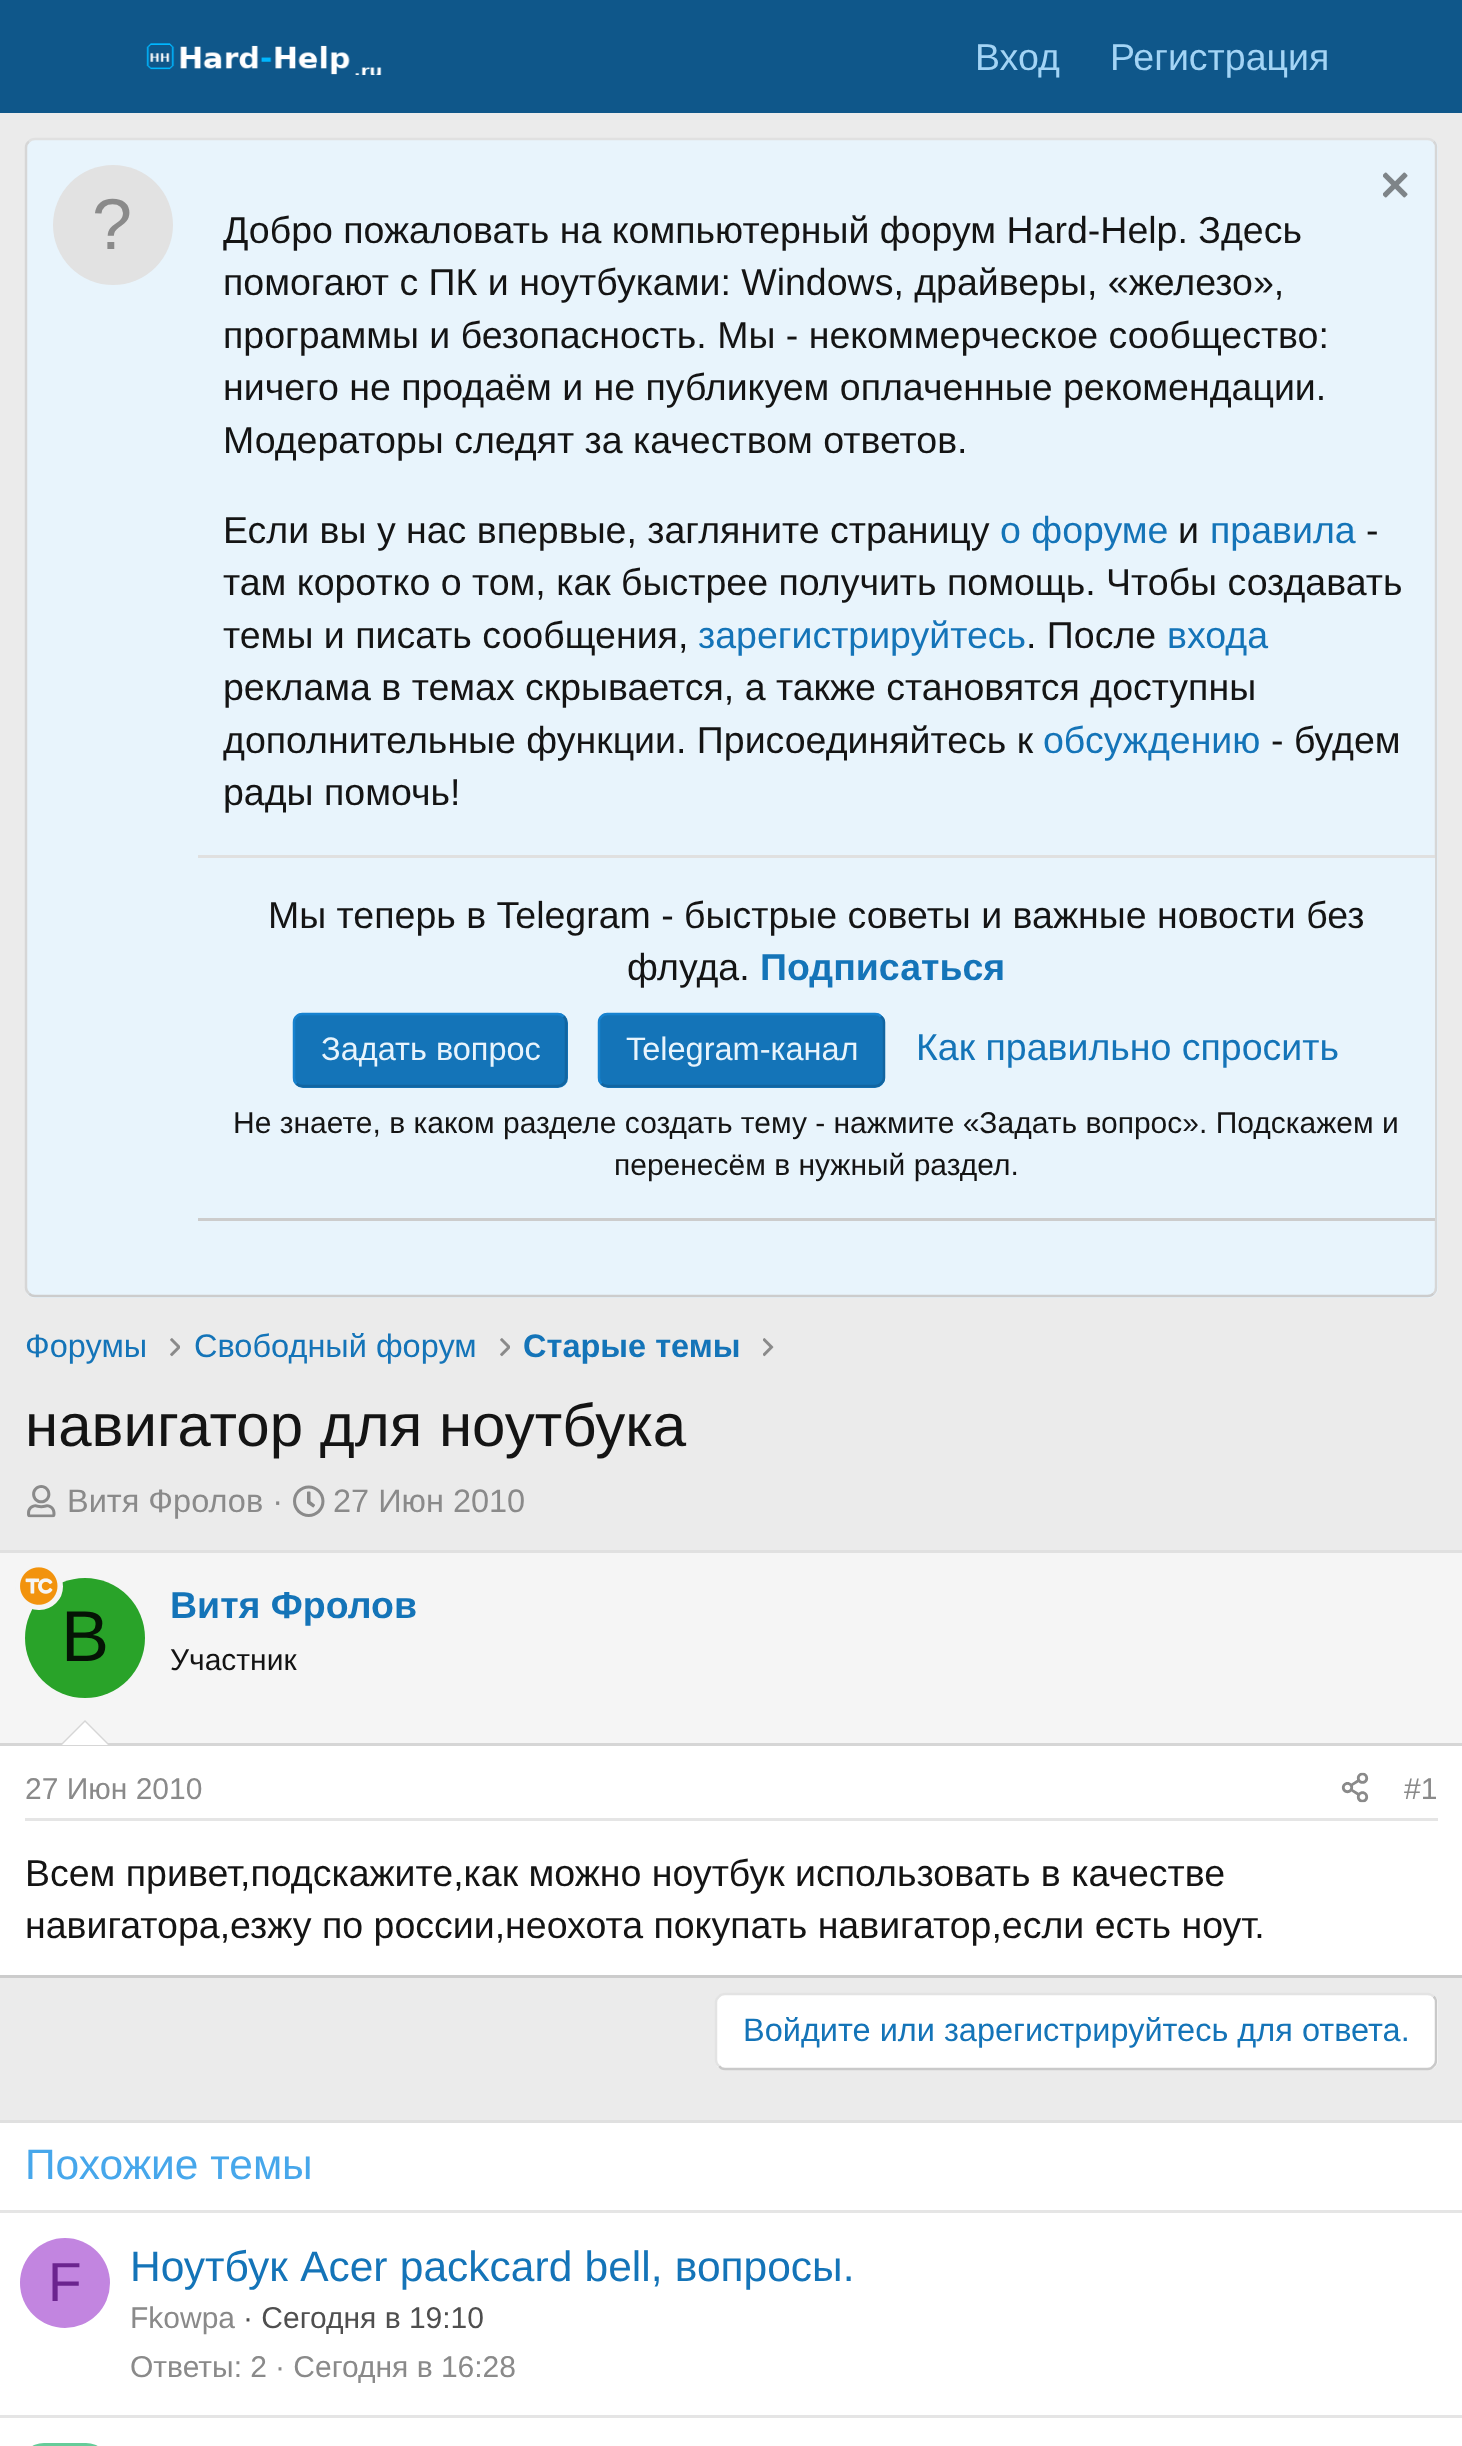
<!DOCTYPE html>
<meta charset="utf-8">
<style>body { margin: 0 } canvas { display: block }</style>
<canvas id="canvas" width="1462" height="2446"></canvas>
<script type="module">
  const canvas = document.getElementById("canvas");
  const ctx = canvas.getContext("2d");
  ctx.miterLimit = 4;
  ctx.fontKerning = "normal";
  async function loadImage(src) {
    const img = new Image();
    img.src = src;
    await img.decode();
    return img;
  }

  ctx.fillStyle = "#ebebeb";
  ctx.fillRect(0, 0, 1462, 2446);
  ctx.fillStyle = "#0f578a";
  ctx.fillRect(0, 0, 1462, 113);
  ctx.drawImage(await loadImage("img1.png"), 146, 43, 236, 32);
  ctx.font = "37.5px Liberation Sans";
  ctx.fillStyle = "#a3d4f5";
  ctx.fillText("Вход", 975, 70);
  ctx.fillText("Регистрация", 1110, 70);
  ctx.fillStyle = "#e8f4fc";
  ctx.beginPath();
  ctx.roundRect(25, 138, 1413, 1160, 10);
  ctx.fill();
  ctx.beginPath();
  ctx.moveTo(29, 141.5);
  ctx.bezierCurveTo(30.5, 139.5, 32.5, 139, 35, 139);
  ctx.lineTo(1427.5, 139);
  ctx.bezierCurveTo(1430, 139, 1432, 139.5, 1433.5, 141.5);
  ctx.strokeStyle = "#e0e0e0";
  ctx.lineWidth = 2.5;
  ctx.stroke();
  ctx.beginPath();
  ctx.moveTo(1433.5, 141.5);
  ctx.bezierCurveTo(1435.5, 143, 1436, 145, 1436, 147.5);
  ctx.lineTo(1436, 1287.5);
  ctx.bezierCurveTo(1436, 1290, 1435.5, 1292, 1433.5, 1293.5);
  ctx.strokeStyle = "#d6d6d6";
  ctx.stroke();
  ctx.beginPath();
  ctx.moveTo(1433.5, 1293.5);
  ctx.bezierCurveTo(1432, 1295.5, 1430, 1296, 1427.5, 1296);
  ctx.lineTo(35, 1296);
  ctx.bezierCurveTo(32.5, 1296, 30.5, 1295.5, 29, 1293.5);
  ctx.strokeStyle = "#cccccc";
  ctx.stroke();
  ctx.beginPath();
  ctx.moveTo(29, 1293.5);
  ctx.bezierCurveTo(27, 1292, 26, 1290, 26, 1287.5);
  ctx.lineTo(26, 147.5);
  ctx.bezierCurveTo(26, 145, 27, 143, 29, 141.5);
  ctx.strokeStyle = "#d6d6d6";
  ctx.stroke();
  ctx.fillStyle = "#e2e2e2";
  ctx.beginPath();
  ctx.arc(113, 225, 60, 0, Math.PI * 2);
  ctx.fill();
  ctx.font = "72px Liberation Sans";
  ctx.fillStyle = "#8a8a8a";
  ctx.fillText("?", 92, 249);
  ctx.drawImage(await loadImage("img2.png"), 1383, 172, 25, 26);
  ctx.font = "37.5px Liberation Sans";
  ctx.fillStyle = "#141414";
  ctx.fillText("Добро пожаловать на компьютерный форум Hard-Help. Здесь", 223, 243);
  ctx.fillText("помогают с ПК и ноутбуками: Windows, драйверы, «железо»,", 223, 295);
  ctx.fillText("программы и безопасность. Мы - некоммерческое сообщество:", 223, 348);
  ctx.fillText("ничего не продаём и не публикуем оплаченные рекомендации.", 223, 400);
  ctx.fillText("Модераторы следят за качеством ответов.", 223, 453);
  ctx.fillText("Если вы у нас впервые, загляните страницу", 223, 543);
  ctx.fillStyle = "#1474b8";
  ctx.fillText("о форуме", 1000, 543);
  ctx.fillStyle = "#141414";
  ctx.fillText("и", 1178, 543);
  ctx.fillStyle = "#1474b8";
  ctx.fillText("правила", 1210, 543);
  ctx.fillStyle = "#141414";
  ctx.fillText("-", 1366, 543);
  ctx.fillText("там коротко о том, как быстрее получить помощь. Чтобы создавать", 223, 595);
  ctx.fillText("темы и писать сообщения,", 223, 648);
  ctx.fillStyle = "#1474b8";
  ctx.fillText("зарегистрируйтесь", 698, 648);
  ctx.fillStyle = "#141414";
  ctx.fillText(". После", 1026, 648);
  ctx.fillStyle = "#1474b8";
  ctx.fillText("входа", 1167, 648);
  ctx.fillStyle = "#141414";
  ctx.fillText("реклама в темах скрывается, а также становятся доступны", 223, 700);
  ctx.fillText("дополнительные функции. Присоединяйтесь к", 223, 753);
  ctx.fillStyle = "#1474b8";
  ctx.fillText("обсуждению", 1043, 753);
  ctx.fillStyle = "#141414";
  ctx.fillText("- будем", 1271, 753);
  ctx.fillText("рады помочь!", 223, 805);
  ctx.fillStyle = "#e8f4fc";
  ctx.fillRect(1434, 858, 1, 360);
  ctx.fillStyle = "#e0e0e0";
  ctx.fillRect(198, 855, 1237, 3);
  ctx.fillStyle = "#cccccc";
  ctx.fillRect(198, 1218, 1237, 3);
  ctx.fillStyle = "#141414";
  ctx.fillText("Мы теперь в Telegram - быстрые советы и важные новости без", 268, 928);
  ctx.fillText("флуда.", 627, 980);
  ctx.font = "bold 37.5px Liberation Sans";
  ctx.fillStyle = "#1474b8";
  ctx.fillText("Подписаться", 760, 980);
  ctx.beginPath();
  ctx.roundRect(293, 1013, 275, 75, 10);
  ctx.fill();
  ctx.beginPath();
  ctx.moveTo(563.5, 1016.5);
  ctx.bezierCurveTo(565.5, 1018, 566, 1020, 566, 1022.5);
  ctx.lineTo(566, 1077.5);
  ctx.bezierCurveTo(566, 1080, 565.5, 1082, 563.5, 1083.5);
  ctx.bezierCurveTo(562, 1085.5, 560, 1086, 557.5, 1086);
  ctx.lineTo(302.5, 1086);
  ctx.bezierCurveTo(300, 1086, 298, 1085.5, 296.5, 1083.5);
  ctx.strokeStyle = "#1265a1";
  ctx.stroke();
  ctx.beginPath();
  ctx.moveTo(296.5, 1083.5);
  ctx.bezierCurveTo(294.5, 1082, 294, 1080, 294, 1077.5);
  ctx.lineTo(294, 1022.5);
  ctx.bezierCurveTo(294, 1020, 294.5, 1018, 296.5, 1016.5);
  ctx.bezierCurveTo(298, 1014.5, 300, 1014, 302.5, 1014);
  ctx.lineTo(557.5, 1014);
  ctx.bezierCurveTo(560, 1014, 562, 1014.5, 563.5, 1016.5);
  ctx.strokeStyle = "#1782cf";
  ctx.stroke();
  ctx.font = "32.5px Liberation Sans";
  ctx.fillStyle = "#e8f4fc";
  ctx.fillText("Задать вопрос", 321, 1060);
  ctx.fillStyle = "#1474b8";
  ctx.beginPath();
  ctx.roundRect(598, 1013, 287, 75, 10);
  ctx.fill();
  ctx.beginPath();
  ctx.moveTo(881, 1016.5);
  ctx.bezierCurveTo(883, 1018, 884, 1020, 884, 1022.5);
  ctx.lineTo(884, 1077.5);
  ctx.bezierCurveTo(884, 1080, 883, 1082, 881, 1083.5);
  ctx.bezierCurveTo(879.5, 1085.5, 877.5, 1086, 875, 1086);
  ctx.lineTo(607.5, 1086);
  ctx.bezierCurveTo(605, 1086, 603, 1085.5, 601.5, 1083.5);
  ctx.strokeStyle = "#1265a1";
  ctx.stroke();
  ctx.beginPath();
  ctx.moveTo(601.5, 1083.5);
  ctx.bezierCurveTo(599.5, 1082, 599, 1080, 599, 1077.5);
  ctx.lineTo(599, 1022.5);
  ctx.bezierCurveTo(599, 1020, 599.5, 1018, 601.5, 1016.5);
  ctx.bezierCurveTo(603, 1014.5, 605, 1014, 607.5, 1014);
  ctx.lineTo(875, 1014);
  ctx.bezierCurveTo(877.5, 1014, 879.5, 1014.5, 881, 1016.5);
  ctx.strokeStyle = "#1782cf";
  ctx.stroke();
  ctx.fillStyle = "#e8f4fc";
  ctx.fillText("Telegram-канал", 626, 1060);
  ctx.font = "37.5px Liberation Sans";
  ctx.fillStyle = "#1474b8";
  ctx.fillText("Как правильно спросить", 916, 1060);
  ctx.font = "30px Liberation Sans";
  ctx.fillStyle = "#141414";
  ctx.fillText("Не знаете, в каком разделе создать тему - нажмите «Задать вопрос». Подскажем и", 233, 1133);
  ctx.fillText("перенесём в нужный раздел.", 614, 1175);
  ctx.font = "32.5px Liberation Sans";
  ctx.fillStyle = "#1474b8";
  ctx.fillText("Форумы", 25, 1357);
  ctx.drawImage(await loadImage("img3.png"), 170, 1338, 10, 19);
  ctx.fillText("Свободный форум", 194, 1357);
  ctx.drawImage(await loadImage("img3.png"), 500, 1338, 10, 19);
  ctx.font = "bold 32.5px Liberation Sans";
  ctx.fillText("Старые темы", 523, 1357);
  ctx.drawImage(await loadImage("img4.png"), 763, 1338, 11, 19);
  ctx.font = "60px Liberation Sans";
  ctx.fillStyle = "#141414";
  ctx.fillText("навигатор для ноутбука", 25, 1446);
  ctx.drawImage(await loadImage("img5.png"), 27, 1485, 29, 33);
  ctx.font = "32.5px Liberation Sans";
  ctx.fillStyle = "#8a8a8a";
  ctx.fillText("Витя Фролов ·", 67, 1512);
  ctx.drawImage(await loadImage("img6.png"), 293, 1485, 32, 32);
  ctx.fillText("27 Июн 2010", 333, 1512);
  ctx.fillStyle = "#ffffff";
  ctx.fillRect(0, 1746, 1462, 229);
  ctx.fillStyle = "#e0e0e0";
  ctx.fillRect(0, 1550, 1462, 3);
  ctx.fillStyle = "#cccccc";
  ctx.fillRect(0, 1975, 1462, 3);
  ctx.fillStyle = "#f5f5f5";
  ctx.fillRect(0, 1553, 1462, 190);
  ctx.fillStyle = "#d6d6d6";
  ctx.fillRect(0, 1743, 1462, 3);
  ctx.fillStyle = "#29a329";
  ctx.beginPath();
  ctx.arc(85, 1638, 60, 0, Math.PI * 2);
  ctx.fill();
  ctx.fillStyle = "#f5f5f5";
  ctx.beginPath();
  ctx.roundRect(17.5, 1565.5, 43, 42, 21);
  ctx.fill();
  ctx.strokeStyle = "#f5f5f5";
  ctx.lineWidth = 5;
  ctx.stroke();
  ctx.drawImage(await loadImage("img7.png"), 20, 1567, 38, 38);
  ctx.font = "72px Liberation Sans";
  ctx.fillStyle = "#051405";
  ctx.fillText("В", 61, 1661);
  ctx.font = "bold 37.5px Liberation Sans";
  ctx.fillStyle = "#1474b8";
  ctx.fillText("Витя Фролов", 170, 1618);
  ctx.font = "30px Liberation Sans";
  ctx.fillStyle = "#141414";
  ctx.fillText("Участник", 170, 1670);
  ctx.fillStyle = "#d6d6d6";
  ctx.beginPath();
  ctx.moveTo(110, 1745);
  ctx.lineTo(60, 1745);
  ctx.lineTo(85, 1720);
  ctx.closePath();
  ctx.fill();
  ctx.fillStyle = "#ffffff";
  ctx.beginPath();
  ctx.moveTo(108, 1745);
  ctx.lineTo(62, 1745);
  ctx.lineTo(85, 1722);
  ctx.closePath();
  ctx.fill();
  ctx.fillStyle = "#e5e5e5";
  ctx.fillRect(25, 1818, 1413, 3);
  ctx.fillStyle = "#8a8a8a";
  ctx.fillText("27 Июн 2010", 25, 1799);
  ctx.drawImage(await loadImage("img8.png"), 1341, 1772, 28, 31);
  ctx.fillText("#1", 1404, 1799);
  ctx.font = "37.5px Liberation Sans";
  ctx.fillStyle = "#141414";
  ctx.fillText("Всем привет,подскажите,как можно ноутбук использовать в качестве", 25, 1886);
  ctx.fillText("навигатора,езжу по россии,неохота покупать навигатор,если есть ноут.", 25, 1938);
  ctx.fillStyle = "#ffffff";
  ctx.beginPath();
  ctx.roundRect(715, 1993, 723, 77, 10);
  ctx.fill();
  ctx.beginPath();
  ctx.moveTo(1433.5, 1996.5);
  ctx.bezierCurveTo(1435.5, 1998, 1436, 2000, 1436, 2002.5);
  ctx.lineTo(1436, 2060);
  ctx.bezierCurveTo(1436, 2062.5, 1435.5, 2064.5, 1433.5, 2066);
  ctx.bezierCurveTo(1432, 2068, 1430, 2069, 1427.5, 2069);
  ctx.lineTo(725, 2069);
  ctx.bezierCurveTo(722.5, 2069, 720.5, 2068, 719, 2066);
  ctx.strokeStyle = "#c9c9c9";
  ctx.lineWidth = 2.5;
  ctx.stroke();
  ctx.beginPath();
  ctx.moveTo(719, 2066);
  ctx.bezierCurveTo(717, 2064.5, 716, 2062.5, 716, 2060);
  ctx.lineTo(716, 2002.5);
  ctx.bezierCurveTo(716, 2000, 717, 1998, 719, 1996.5);
  ctx.bezierCurveTo(720.5, 1994.5, 722.5, 1994, 725, 1994);
  ctx.lineTo(1427.5, 1994);
  ctx.bezierCurveTo(1430, 1994, 1432, 1994.5, 1433.5, 1996.5);
  ctx.strokeStyle = "#e3e3e3";
  ctx.stroke();
  ctx.font = "32.5px Liberation Sans";
  ctx.fillStyle = "#1474b8";
  ctx.fillText("Войдите или зарегистрируйтесь для ответа.", 743, 2041);
  ctx.fillStyle = "#ffffff";
  ctx.fillRect(0, 2123, 1462, 323);
  ctx.fillStyle = "#e0e0e0";
  ctx.fillRect(0, 2120, 1462, 3);
  ctx.font = "42.5px Liberation Sans";
  ctx.fillStyle = "#47a7eb";
  ctx.fillText("Похожие темы", 25, 2179);
  ctx.fillStyle = "#e5e5e5";
  ctx.fillRect(0, 2210, 1462, 3);
  ctx.fillStyle = "#c285e0";
  ctx.beginPath();
  ctx.arc(65, 2283, 45, 0, Math.PI * 2);
  ctx.fill();
  ctx.font = "55px Liberation Sans";
  ctx.fillStyle = "#6b248f";
  ctx.fillText("F", 48, 2301);
  ctx.wordSpacing = "0.5px";
  ctx.font = "42.5px Liberation Sans";
  ctx.fillStyle = "#1474b8";
  ctx.fillText("Ноутбук Acer packcard bell, вопросы.", 130, 2281);
  ctx.wordSpacing = "0px";
  ctx.font = "30px Liberation Sans";
  ctx.fillStyle = "#8a8a8a";
  ctx.fillText("Fkowpa", 130, 2328);
  ctx.fillStyle = "#4f4f4f";
  ctx.fillText("· Сегодня в 19:10", 243, 2328);
  ctx.fillStyle = "#8a8a8a";
  ctx.fillText("Ответы: 2", 130, 2377);
  ctx.fillText("· Сегодня в 16:28", 275, 2377);
  ctx.fillStyle = "#e5e5e5";
  ctx.fillRect(0, 2415, 1462, 3);
  ctx.fillStyle = "#66cc99";
  ctx.beginPath();
  ctx.roundRect(20, 2443, 90, 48, 45);
  ctx.fill();
</script>
